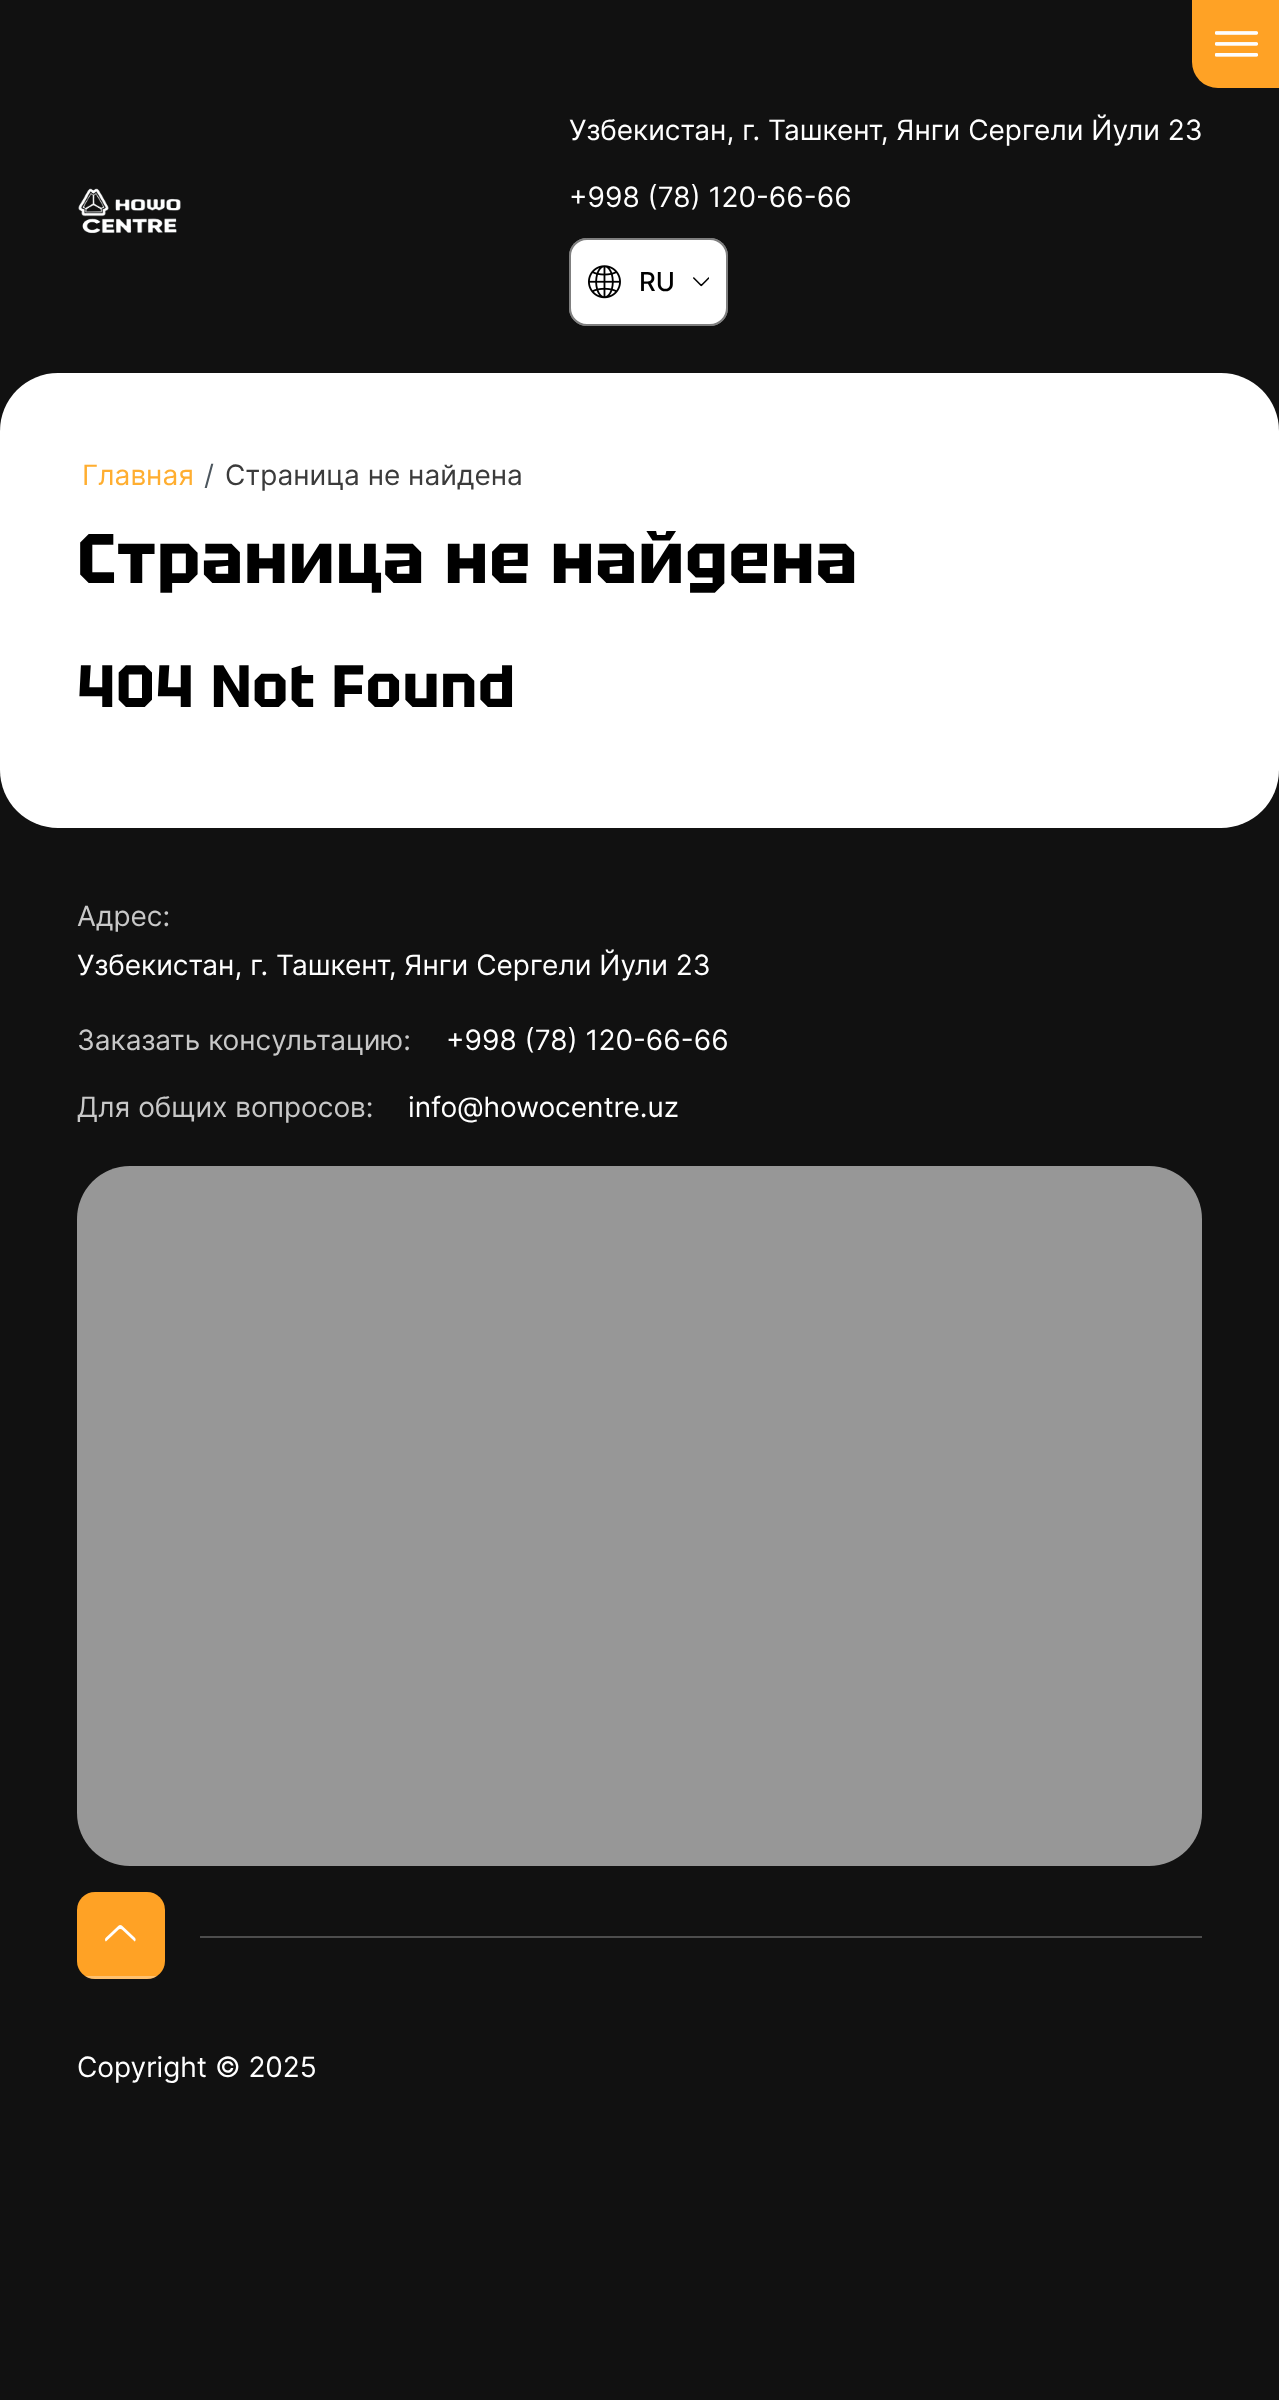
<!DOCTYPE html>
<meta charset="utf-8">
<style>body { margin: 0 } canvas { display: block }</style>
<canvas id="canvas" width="1279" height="2400"></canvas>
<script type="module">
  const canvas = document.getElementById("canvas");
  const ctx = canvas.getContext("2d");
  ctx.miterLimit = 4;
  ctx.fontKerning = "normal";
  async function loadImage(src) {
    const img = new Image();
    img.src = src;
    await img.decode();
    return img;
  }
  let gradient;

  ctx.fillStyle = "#111111";
  ctx.fillRect(0, 0, 1279, 2400);
  ctx.fillStyle = "#ffa225";
  ctx.beginPath();
  ctx.roundRect(1192, 0, 87, 88, [0, 0, 0, 26]);
  ctx.fill();
  ctx.drawImage(await loadImage("img1.png"), 1215, 31, 43, 26);
  ctx.drawImage(await loadImage("img2.png"), 78, 188, 103, 46);
  ctx.font = "28px Inter";
  ctx.fillStyle = "#ffffff";
  ctx.fillText("Узбекистан, г. Ташкент, Янги Сергели Йули 23", 569, 140);
  ctx.fillText("+998 (78) 120-66-66", 569, 207);
  ctx.beginPath();
  ctx.roundRect(569, 238, 159, 88, 18);
  ctx.fill();
  ctx.beginPath();
  ctx.roundRect(570, 239, 157, 86, 17);
  ctx.strokeStyle = "rgba(0, 0, 0, 0.5)";
  ctx.lineWidth = 2;
  ctx.stroke();
  ctx.drawImage(await loadImage("img3.png"), 588, 265, 33, 34);
  ctx.font = "500 26px Inter";
  ctx.fillStyle = "#000000";
  ctx.fillText("RU", 639, 291);
  ctx.drawImage(await loadImage("img4.png"), 693, 277, 16, 10);
  ctx.fillStyle = "#ffffff";
  ctx.beginPath();
  ctx.roundRect(0, 373, 1279, 455, 58);
  ctx.fill();
  ctx.font = "28px Inter";
  ctx.fillStyle = "#ffae30";
  ctx.fillText("Главная", 82, 485);
  ctx.fillStyle = "#4c565e";
  ctx.fillText("/", 204, 485);
  ctx.fillStyle = "#3b3b3b";
  ctx.fillText("Страница не найдена", 225, 485);
  ctx.letterSpacing = "0.9px";
  ctx.font = "bold 70px Tektur";
  ctx.fillStyle = "#000000";
  ctx.fillText("Страница не найдена", 77, 583);
  ctx.font = "bold 59.5px Tektur";
  ctx.fillText("404 Not Found", 77, 707);
  ctx.letterSpacing = "0px";
  ctx.font = "28px Inter";
  ctx.fillStyle = "#c8c8c8";
  ctx.fillText("Адрес:", 77, 926);
  ctx.fillStyle = "#ffffff";
  ctx.fillText("Узбекистан, г. Ташкент, Янги Сергели Йули 23", 77, 975);
  ctx.fillStyle = "#c8c8c8";
  ctx.fillText("Заказать консультацию:", 77, 1050);
  ctx.fillStyle = "#ffffff";
  ctx.fillText("+998 (78) 120-66-66", 446, 1050);
  ctx.fillStyle = "#c8c8c8";
  ctx.fillText("Для общих вопросов:", 77, 1117);
  ctx.fillStyle = "#ffffff";
  ctx.fillText("info@howocentre.uz", 408, 1117);
  ctx.fillStyle = "#979797";
  ctx.beginPath();
  ctx.roundRect(77, 1166, 1125, 700, 53);
  ctx.fill();
  ctx.fillStyle = "#ffa225";
  ctx.beginPath();
  ctx.roundRect(77, 1892, 88, 87, 18);
  ctx.fill();
  ctx.drawImage(await loadImage("img5.png"), 105, 1925, 31, 17);
  ctx.fillStyle = "rgba(255, 255, 255, 0.03)";
  ctx.fillRect(86, 1976, 70, 3);
  ctx.save();
  ctx.beginPath();
  ctx.roundRect(77, 1892, 88, 87, 18);
  ctx.clip();
  gradient = ctx.createLinearGradient(121, 2011, 121, 1976);
  gradient.addColorStop(0, "rgba(255, 255, 255, 0)");
  gradient.addColorStop(1, "rgba(255, 255, 255, 0.33)");
  ctx.fillStyle = gradient;
  ctx.fillRect(77, 1976, 88, 3);
  ctx.restore();
  ctx.fillStyle = "#4d4d4d";
  ctx.fillRect(200, 1936, 1002, 2);
  ctx.fillStyle = "#ffffff";
  ctx.fillText("Copyright © 2025", 77, 2077);
</script>
